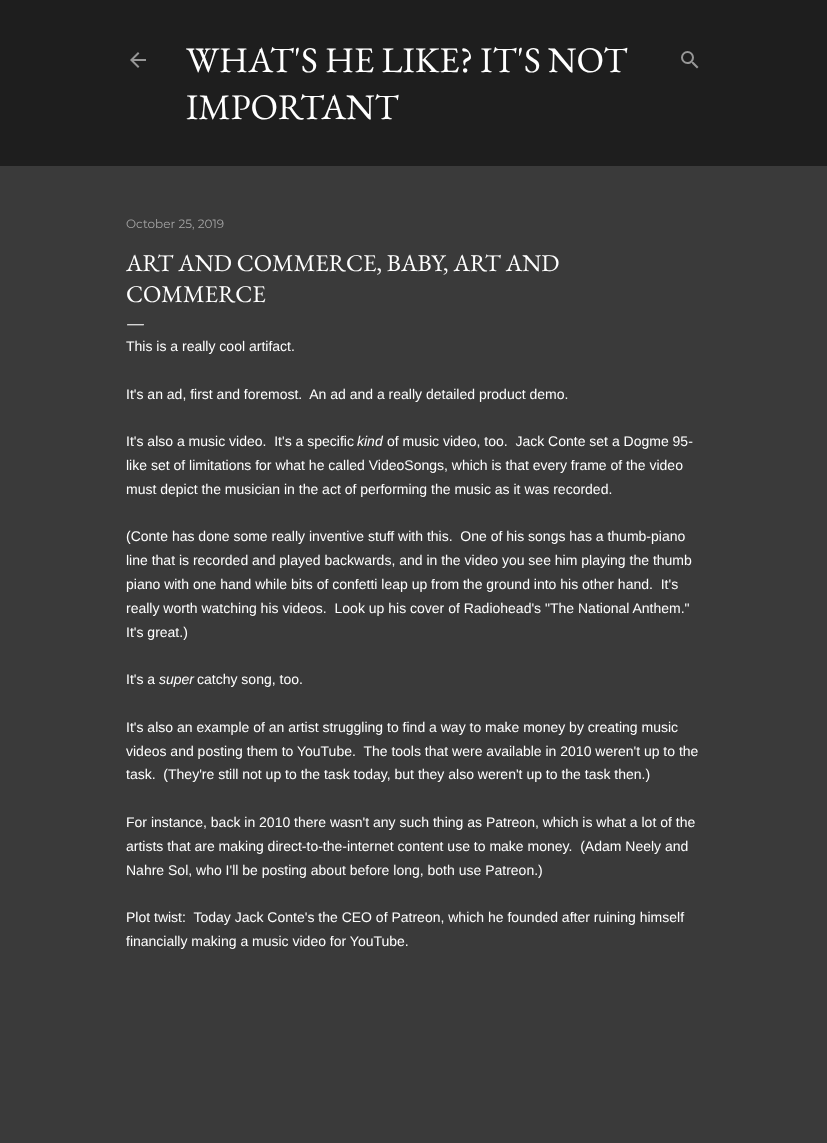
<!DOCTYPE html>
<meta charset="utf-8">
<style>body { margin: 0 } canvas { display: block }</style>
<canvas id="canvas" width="827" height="1143"></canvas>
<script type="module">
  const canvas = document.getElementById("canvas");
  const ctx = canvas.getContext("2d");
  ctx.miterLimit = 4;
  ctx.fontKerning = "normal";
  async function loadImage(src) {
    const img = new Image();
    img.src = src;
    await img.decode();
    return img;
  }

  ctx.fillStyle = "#3a3a3a";
  ctx.fillRect(0, 0, 827, 1143);
  ctx.fillStyle = "#1e1e1e";
  ctx.fillRect(0, 0, 827, 166);
  ctx.drawImage(await loadImage("img1.png"), 130, 52, 16, 16);
  ctx.font = "36px EB Garamond";
  ctx.fillStyle = "#ffffff";
  ctx.fillText("WHAT'S HE LIKE? IT'S NOT", 186, 72);
  ctx.fillText("IMPORTANT", 186, 119);
  ctx.drawImage(await loadImage("img2.png"), 681, 51, 18, 18);
  ctx.font = "12px Montserrat";
  ctx.fillStyle = "#a4a4a4";
  ctx.fillText("October 25, 2019", 126, 228);
  ctx.font = "24px EB Garamond";
  ctx.fillStyle = "#ffffff";
  ctx.fillText("ART AND COMMERCE, BABY, ART AND", 126, 271);
  ctx.fillText("COMMERCE", 126, 302);
  ctx.font = "20px EB Garamond";
  ctx.fillText("—", 126, 329);
  ctx.font = "14px Liberation Sans";
  ctx.fillText("This is a really cool artifact.", 126, 351);
  ctx.fillText("It's an ad, first and foremost.  An ad and a really detailed product demo.", 126, 399);
  ctx.fillText("It's also a music video.  It's a specific", 126, 446);
  ctx.font = "italic 14px Liberation Sans";
  ctx.fillText("kind", 357, 446);
  ctx.font = "14px Liberation Sans";
  ctx.fillText("of music video, too.  Jack Conte set a Dogme 95-", 387, 446);
  ctx.fillText("like set of limitations for what he called VideoSongs, which is that every frame of the video", 126, 470);
  ctx.fillText("must depict the musician in the act of performing the music as it was recorded.", 126, 494);
  ctx.fillText("(Conte has done some really inventive stuff with this.  One of his songs has a thumb-piano", 126, 541);
  ctx.fillText("line that is recorded and played backwards, and in the video you see him playing the thumb", 126, 565);
  ctx.fillText("piano with one hand while bits of confetti leap up from the ground into his other hand.  It's", 126, 589);
  ctx.fillText("really worth watching his videos.  Look up his cover of Radiohead's \"The National Anthem.\"", 126, 613);
  ctx.fillText("It's great.)", 126, 637);
  ctx.fillText("It's a", 126, 684);
  ctx.font = "italic 14px Liberation Sans";
  ctx.fillText("super", 159, 684);
  ctx.font = "14px Liberation Sans";
  ctx.fillText("catchy song, too.", 197, 684);
  ctx.fillText("It's also an example of an artist struggling to find a way to make money by creating music", 126, 732);
  ctx.fillText("videos and posting them to YouTube.  The tools that were available in 2010 weren't up to the", 126, 756);
  ctx.fillText("task.  (They're still not up to the task today, but they also weren't up to the task then.)", 126, 779);
  ctx.fillText("For instance, back in 2010 there wasn't any such thing as Patreon, which is what a lot of the", 126, 827);
  ctx.fillText("artists that are making direct-to-the-internet content use to make money.  (Adam Neely and", 126, 851);
  ctx.fillText("Nahre Sol, who I'll be posting about before long, both use Patreon.)", 126, 875);
  ctx.fillText("Plot twist:  Today Jack Conte's the CEO of Patreon, which he founded after ruining himself", 126, 922);
  ctx.fillText("financially making a music video for YouTube.", 126, 946);
</script>
